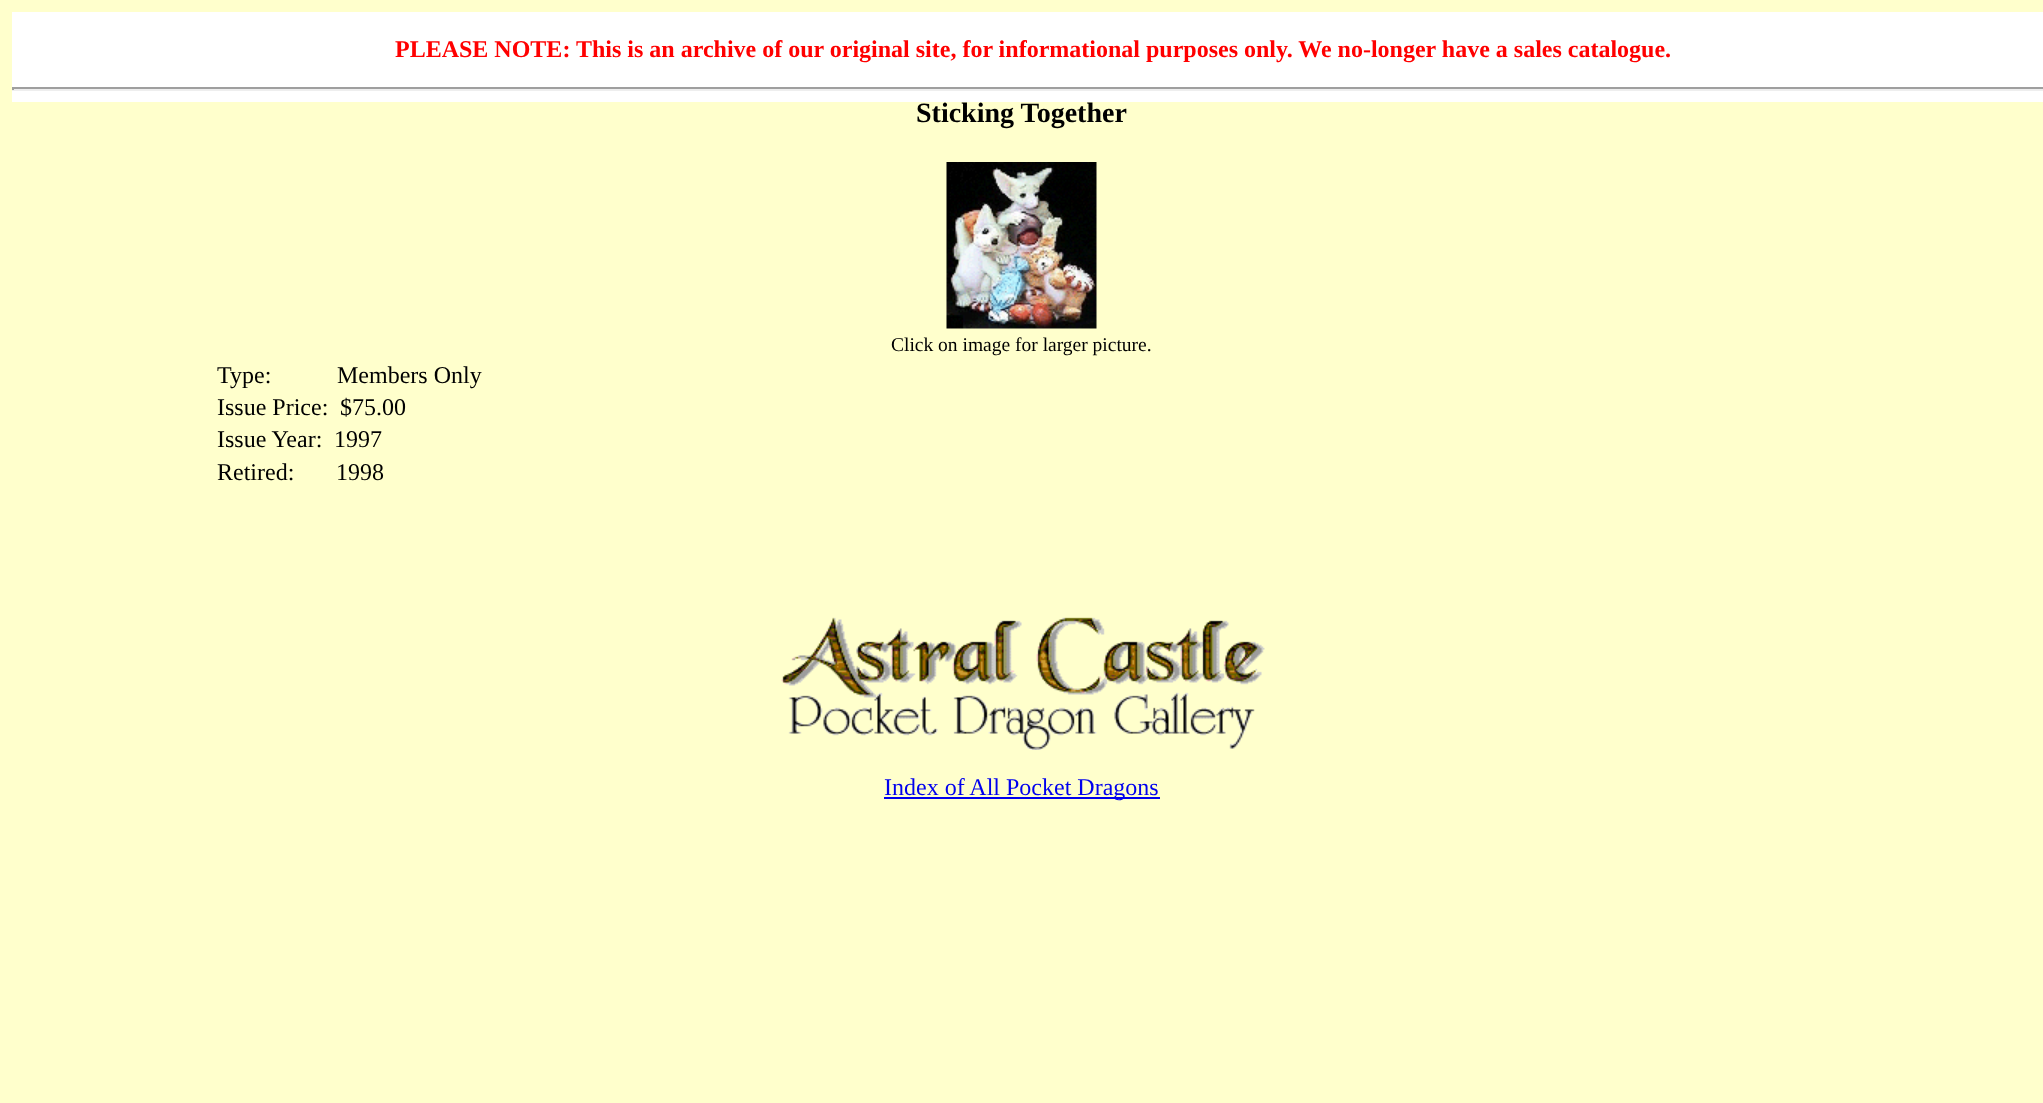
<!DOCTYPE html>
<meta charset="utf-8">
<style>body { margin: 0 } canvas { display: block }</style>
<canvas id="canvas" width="2043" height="1103"></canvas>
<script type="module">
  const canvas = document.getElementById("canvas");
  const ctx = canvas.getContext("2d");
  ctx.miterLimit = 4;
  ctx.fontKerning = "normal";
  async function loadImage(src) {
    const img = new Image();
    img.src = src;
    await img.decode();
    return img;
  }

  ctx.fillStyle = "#ffffcc";
  ctx.fillRect(0, 0, 2043, 1103);
  ctx.fillStyle = "#ffffff";
  ctx.fillRect(12, 12, 2031, 90);
  ctx.font = "bold 24px Liberation Serif";
  ctx.fillStyle = "#ff0000";
  ctx.fillText("PLEASE NOTE: This is an archive of our original site, for informational purposes only. We no-longer have a sales catalogue.", 395, 57);
  ctx.fillStyle = "#9f9f9f";
  ctx.fillRect(12, 87, 2031, 2);
  ctx.fillStyle = "#eeeeee";
  ctx.fillRect(12, 89, 2031, 2);
  ctx.fillStyle = "#9f9f9f";
  ctx.fillRect(12, 87, 2, 3);
  ctx.font = "bold 28px Liberation Serif";
  ctx.fillStyle = "#000000";
  ctx.fillText("Sticking Together", 916, 122);
  ctx.drawImage(await loadImage("img1.png"), 946, 162, 151, 167);
  ctx.font = "19.5px Liberation Serif";
  ctx.fillText("Click on image for larger picture.", 891, 351);
  ctx.font = "24px Liberation Serif";
  ctx.fillText("Type:", 217, 383);
  ctx.fillText("Members Only", 337, 383);
  ctx.fillText("Issue Price:", 217, 415);
  ctx.fillText("$75.00", 340, 415);
  ctx.fillText("Issue Year:", 217, 447);
  ctx.fillText("1997", 334, 447);
  ctx.fillText("Retired:", 217, 480);
  ctx.fillText("1998", 336, 480);
  ctx.drawImage(await loadImage("img2.png"), 781, 617, 484, 133);
  ctx.fillStyle = "#0000ee";
  ctx.fillRect(884, 797, 276, 2);
  ctx.fillText("Index of All Pocket Dragons", 884, 795);
</script>
